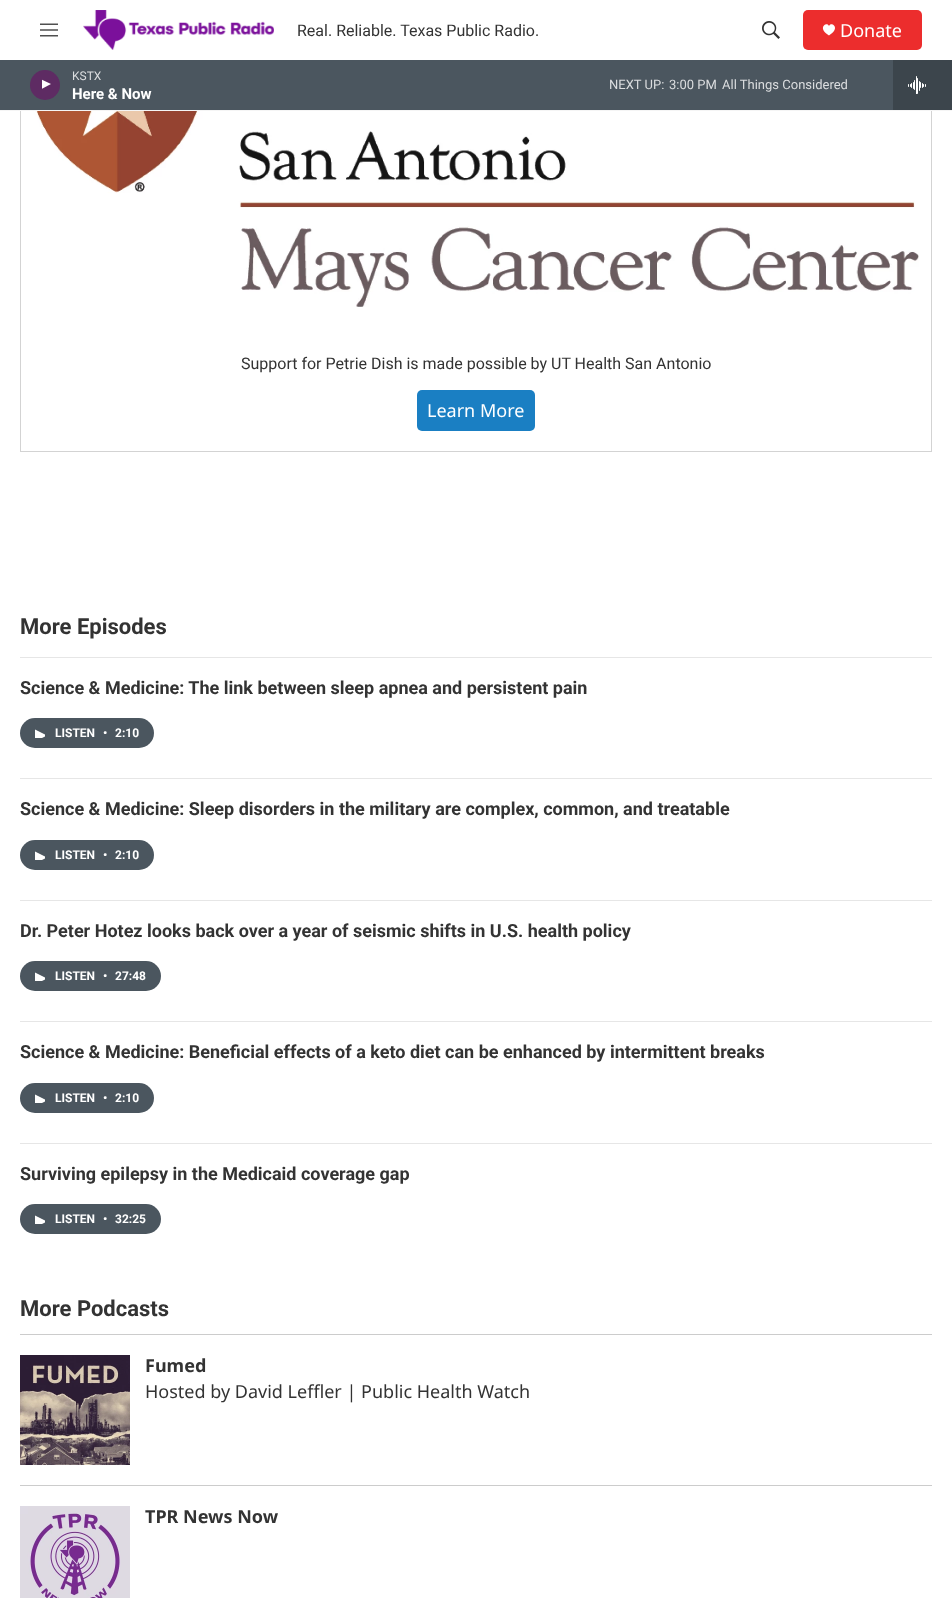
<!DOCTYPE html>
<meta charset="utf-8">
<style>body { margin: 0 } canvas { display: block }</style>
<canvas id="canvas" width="952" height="1598"></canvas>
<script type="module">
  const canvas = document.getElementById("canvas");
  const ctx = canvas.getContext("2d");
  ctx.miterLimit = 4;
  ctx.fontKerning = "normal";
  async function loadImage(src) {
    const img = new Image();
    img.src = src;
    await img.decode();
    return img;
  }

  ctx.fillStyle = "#ffffff";
  ctx.fillRect(0, 0, 952, 1598);
  ctx.strokeStyle = "#d3d3d3";
  ctx.strokeRect(20.5, -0.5, 911, 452);
  ctx.fillRect(20, 0, 912, 60);
  ctx.fillStyle = "#f5f5f5";
  ctx.fillRect(0, 110, 952, 1);
  ctx.drawImage(await loadImage("img1.png"), 40, 23, 18, 14);
  ctx.drawImage(await loadImage("img2.png"), 83, 10, 191, 40);
  ctx.font = "16px Roboto";
  ctx.fillStyle = "#333333";
  ctx.fillText("Real. Reliable. Texas Public Radio.", 297, 36);
  ctx.drawImage(await loadImage("img3.png"), 762, 21, 18, 18);
  ctx.fillStyle = "#ec2d2d";
  ctx.beginPath();
  ctx.roundRect(803, 10, 119, 40, 5);
  ctx.fill();
  ctx.fillStyle = "#ffffff";
  ctx.beginPath();
  ctx.moveTo(829, 26);
  ctx.bezierCurveTo(827, 21, 816.5, 28, 829, 35.5);
  ctx.bezierCurveTo(841.5, 28, 831, 21, 829, 26);
  ctx.closePath();
  ctx.fill();
  ctx.font = "18px Noto Sans";
  ctx.fillText("Donate", 840, 37);
  ctx.fillStyle = "#4b565f";
  ctx.fillRect(0, 60, 893, 50);
  ctx.fillStyle = "#5e2b63";
  ctx.beginPath();
  ctx.arc(45, 85, 15, 0, Math.PI * 2);
  ctx.fill();
  ctx.save();
  ctx.beginPath();
  ctx.rect(42, 78, 12, 15);
  ctx.clip();
  ctx.fillStyle = "#ffffff";
  ctx.beginPath();
  ctx.moveTo(41.5, 79.5);
  ctx.lineTo(51, 84);
  ctx.lineTo(41.5, 89);
  ctx.closePath();
  ctx.fill();
  ctx.restore();
  ctx.font = "12px Roboto";
  ctx.fillStyle = "#dbdddf";
  ctx.fillText("KSTX", 72, 80);
  ctx.font = "bold 15px 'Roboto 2'";
  ctx.fillStyle = "#ffffff";
  ctx.fillText("Here & Now", 72, 99);
  ctx.font = "13px Roboto";
  ctx.fillStyle = "#dbdddf";
  ctx.fillText("NEXT UP:", 609, 89);
  ctx.fillText("3:00 PM", 669, 89);
  ctx.fillText("All Things Considered", 722, 89);
  ctx.fillStyle = "#3c454c";
  ctx.fillRect(893, 60, 59, 50);
  ctx.drawImage(await loadImage("img4.png"), 908, 76, 18, 18);
  ctx.drawImage(await loadImage("img5.png"), 25, 111, 894, 196);
  ctx.font = "16px Roboto";
  ctx.fillStyle = "#333333";
  ctx.fillText("Support for Petrie Dish is made possible by UT Health San Antonio", 241, 369);
  ctx.fillStyle = "#1a7fc3";
  ctx.beginPath();
  ctx.roundRect(417, 390, 118, 41, 5);
  ctx.fill();
  ctx.font = "18px Noto Sans";
  ctx.fillStyle = "#ffffff";
  ctx.fillText("Learn More", 427, 417);
  ctx.fillStyle = "#e6e6e6";
  ctx.fillRect(20, 657, 912, 1);
  ctx.font = "bold 22px Roboto";
  ctx.fillStyle = "#333333";
  ctx.fillText("More Episodes", 20, 634);
  ctx.fillStyle = "#e6e6e6";
  ctx.fillRect(20, 778, 912, 1);
  ctx.font = "bold 18px Roboto";
  ctx.fillStyle = "#333333";
  ctx.fillText("Science & Medicine: The link between sleep apnea and persistent pain", 20, 694);
  ctx.fillStyle = "#4b565f";
  ctx.beginPath();
  ctx.roundRect(20, 718, 134, 30, 15);
  ctx.fill();
  ctx.save();
  ctx.beginPath();
  ctx.rect(35, 728, 10, 10);
  ctx.clip();
  ctx.fillStyle = "#ffffff";
  ctx.beginPath();
  ctx.moveTo(35, 729.5);
  ctx.lineTo(47, 735.5);
  ctx.lineTo(35, 741.5);
  ctx.closePath();
  ctx.fill();
  ctx.restore();
  ctx.font = "bold 12px 'Roboto 2'";
  ctx.fillStyle = "#ffffff";
  ctx.fillText("LISTEN", 55, 737);
  ctx.fillText("•", 103, 737);
  ctx.fillText("2:10", 115, 737);
  ctx.fillStyle = "#e6e6e6";
  ctx.fillRect(20, 900, 912, 1);
  ctx.font = "bold 18px Roboto";
  ctx.fillStyle = "#333333";
  ctx.fillText("Science & Medicine: Sleep disorders in the military are complex, common, and treatable", 20, 815);
  ctx.fillStyle = "#4b565f";
  ctx.beginPath();
  ctx.roundRect(20, 840, 134, 30, 15);
  ctx.fill();
  ctx.save();
  ctx.beginPath();
  ctx.rect(35, 850, 10, 10);
  ctx.clip();
  ctx.fillStyle = "#ffffff";
  ctx.beginPath();
  ctx.moveTo(35, 851.5);
  ctx.lineTo(47, 857.5);
  ctx.lineTo(35, 863.5);
  ctx.closePath();
  ctx.fill();
  ctx.restore();
  ctx.font = "bold 12px 'Roboto 2'";
  ctx.fillStyle = "#ffffff";
  ctx.fillText("LISTEN", 55, 859);
  ctx.fillText("•", 103, 859);
  ctx.fillText("2:10", 115, 859);
  ctx.fillStyle = "#e6e6e6";
  ctx.fillRect(20, 1021, 912, 1);
  ctx.font = "bold 18px Roboto";
  ctx.fillStyle = "#333333";
  ctx.fillText("Dr. Peter Hotez looks back over a year of seismic shifts in U.S. health policy", 20, 937);
  ctx.fillStyle = "#4b565f";
  ctx.beginPath();
  ctx.roundRect(20, 961, 141, 30, 15);
  ctx.fill();
  ctx.save();
  ctx.beginPath();
  ctx.rect(35, 971, 10, 10);
  ctx.clip();
  ctx.fillStyle = "#ffffff";
  ctx.beginPath();
  ctx.moveTo(35, 972.5);
  ctx.lineTo(47, 978.5);
  ctx.lineTo(35, 984.5);
  ctx.closePath();
  ctx.fill();
  ctx.restore();
  ctx.font = "bold 12px 'Roboto 2'";
  ctx.fillStyle = "#ffffff";
  ctx.fillText("LISTEN", 55, 980);
  ctx.fillText("•", 103, 980);
  ctx.fillText("27:48", 115, 980);
  ctx.fillStyle = "#e6e6e6";
  ctx.fillRect(20, 1143, 912, 1);
  ctx.font = "bold 18px Roboto";
  ctx.fillStyle = "#333333";
  ctx.fillText("Science & Medicine: Beneficial effects of a keto diet can be enhanced by intermittent breaks", 20, 1058);
  ctx.fillStyle = "#4b565f";
  ctx.beginPath();
  ctx.roundRect(20, 1083, 134, 30, 15);
  ctx.fill();
  ctx.save();
  ctx.beginPath();
  ctx.rect(35, 1093, 10, 10);
  ctx.clip();
  ctx.fillStyle = "#ffffff";
  ctx.beginPath();
  ctx.moveTo(35, 1094.5);
  ctx.lineTo(47, 1100.5);
  ctx.lineTo(35, 1106.5);
  ctx.closePath();
  ctx.fill();
  ctx.restore();
  ctx.font = "bold 12px 'Roboto 2'";
  ctx.fillStyle = "#ffffff";
  ctx.fillText("LISTEN", 55, 1102);
  ctx.fillText("•", 103, 1102);
  ctx.fillText("2:10", 115, 1102);
  ctx.font = "bold 18px Roboto";
  ctx.fillStyle = "#333333";
  ctx.fillText("Surviving epilepsy in the Medicaid coverage gap", 20, 1180);
  ctx.fillStyle = "#4b565f";
  ctx.beginPath();
  ctx.roundRect(20, 1204, 141, 30, 15);
  ctx.fill();
  ctx.save();
  ctx.beginPath();
  ctx.rect(35, 1214, 10, 10);
  ctx.clip();
  ctx.fillStyle = "#ffffff";
  ctx.beginPath();
  ctx.moveTo(35, 1215.5);
  ctx.lineTo(47, 1221.5);
  ctx.lineTo(35, 1227.5);
  ctx.closePath();
  ctx.fill();
  ctx.restore();
  ctx.font = "bold 12px 'Roboto 2'";
  ctx.fillStyle = "#ffffff";
  ctx.fillText("LISTEN", 55, 1223);
  ctx.fillText("•", 103, 1223);
  ctx.fillText("32:25", 115, 1223);
  ctx.font = "bold 22px Roboto";
  ctx.fillStyle = "#333333";
  ctx.fillText("More Podcasts", 20, 1316);
  ctx.fillStyle = "#cccccc";
  ctx.fillRect(20, 1334, 912, 1);
  ctx.fillRect(20, 1485, 912, 1);
  ctx.drawImage(await loadImage("img6.png"), 20, 1355, 110, 110);
  ctx.font = "bold 18px Noto Sans";
  ctx.fillStyle = "#333333";
  ctx.fillText("Fumed", 145, 1372);
  ctx.font = "18px Noto Sans";
  ctx.fillText("Hosted by David Leffler | Public Health Watch", 145, 1398);
  ctx.drawImage(await loadImage("img7.png"), 20, 1506, 110, 92);
  ctx.font = "bold 18px Noto Sans";
  ctx.fillText("TPR News Now", 145, 1523);
</script>
